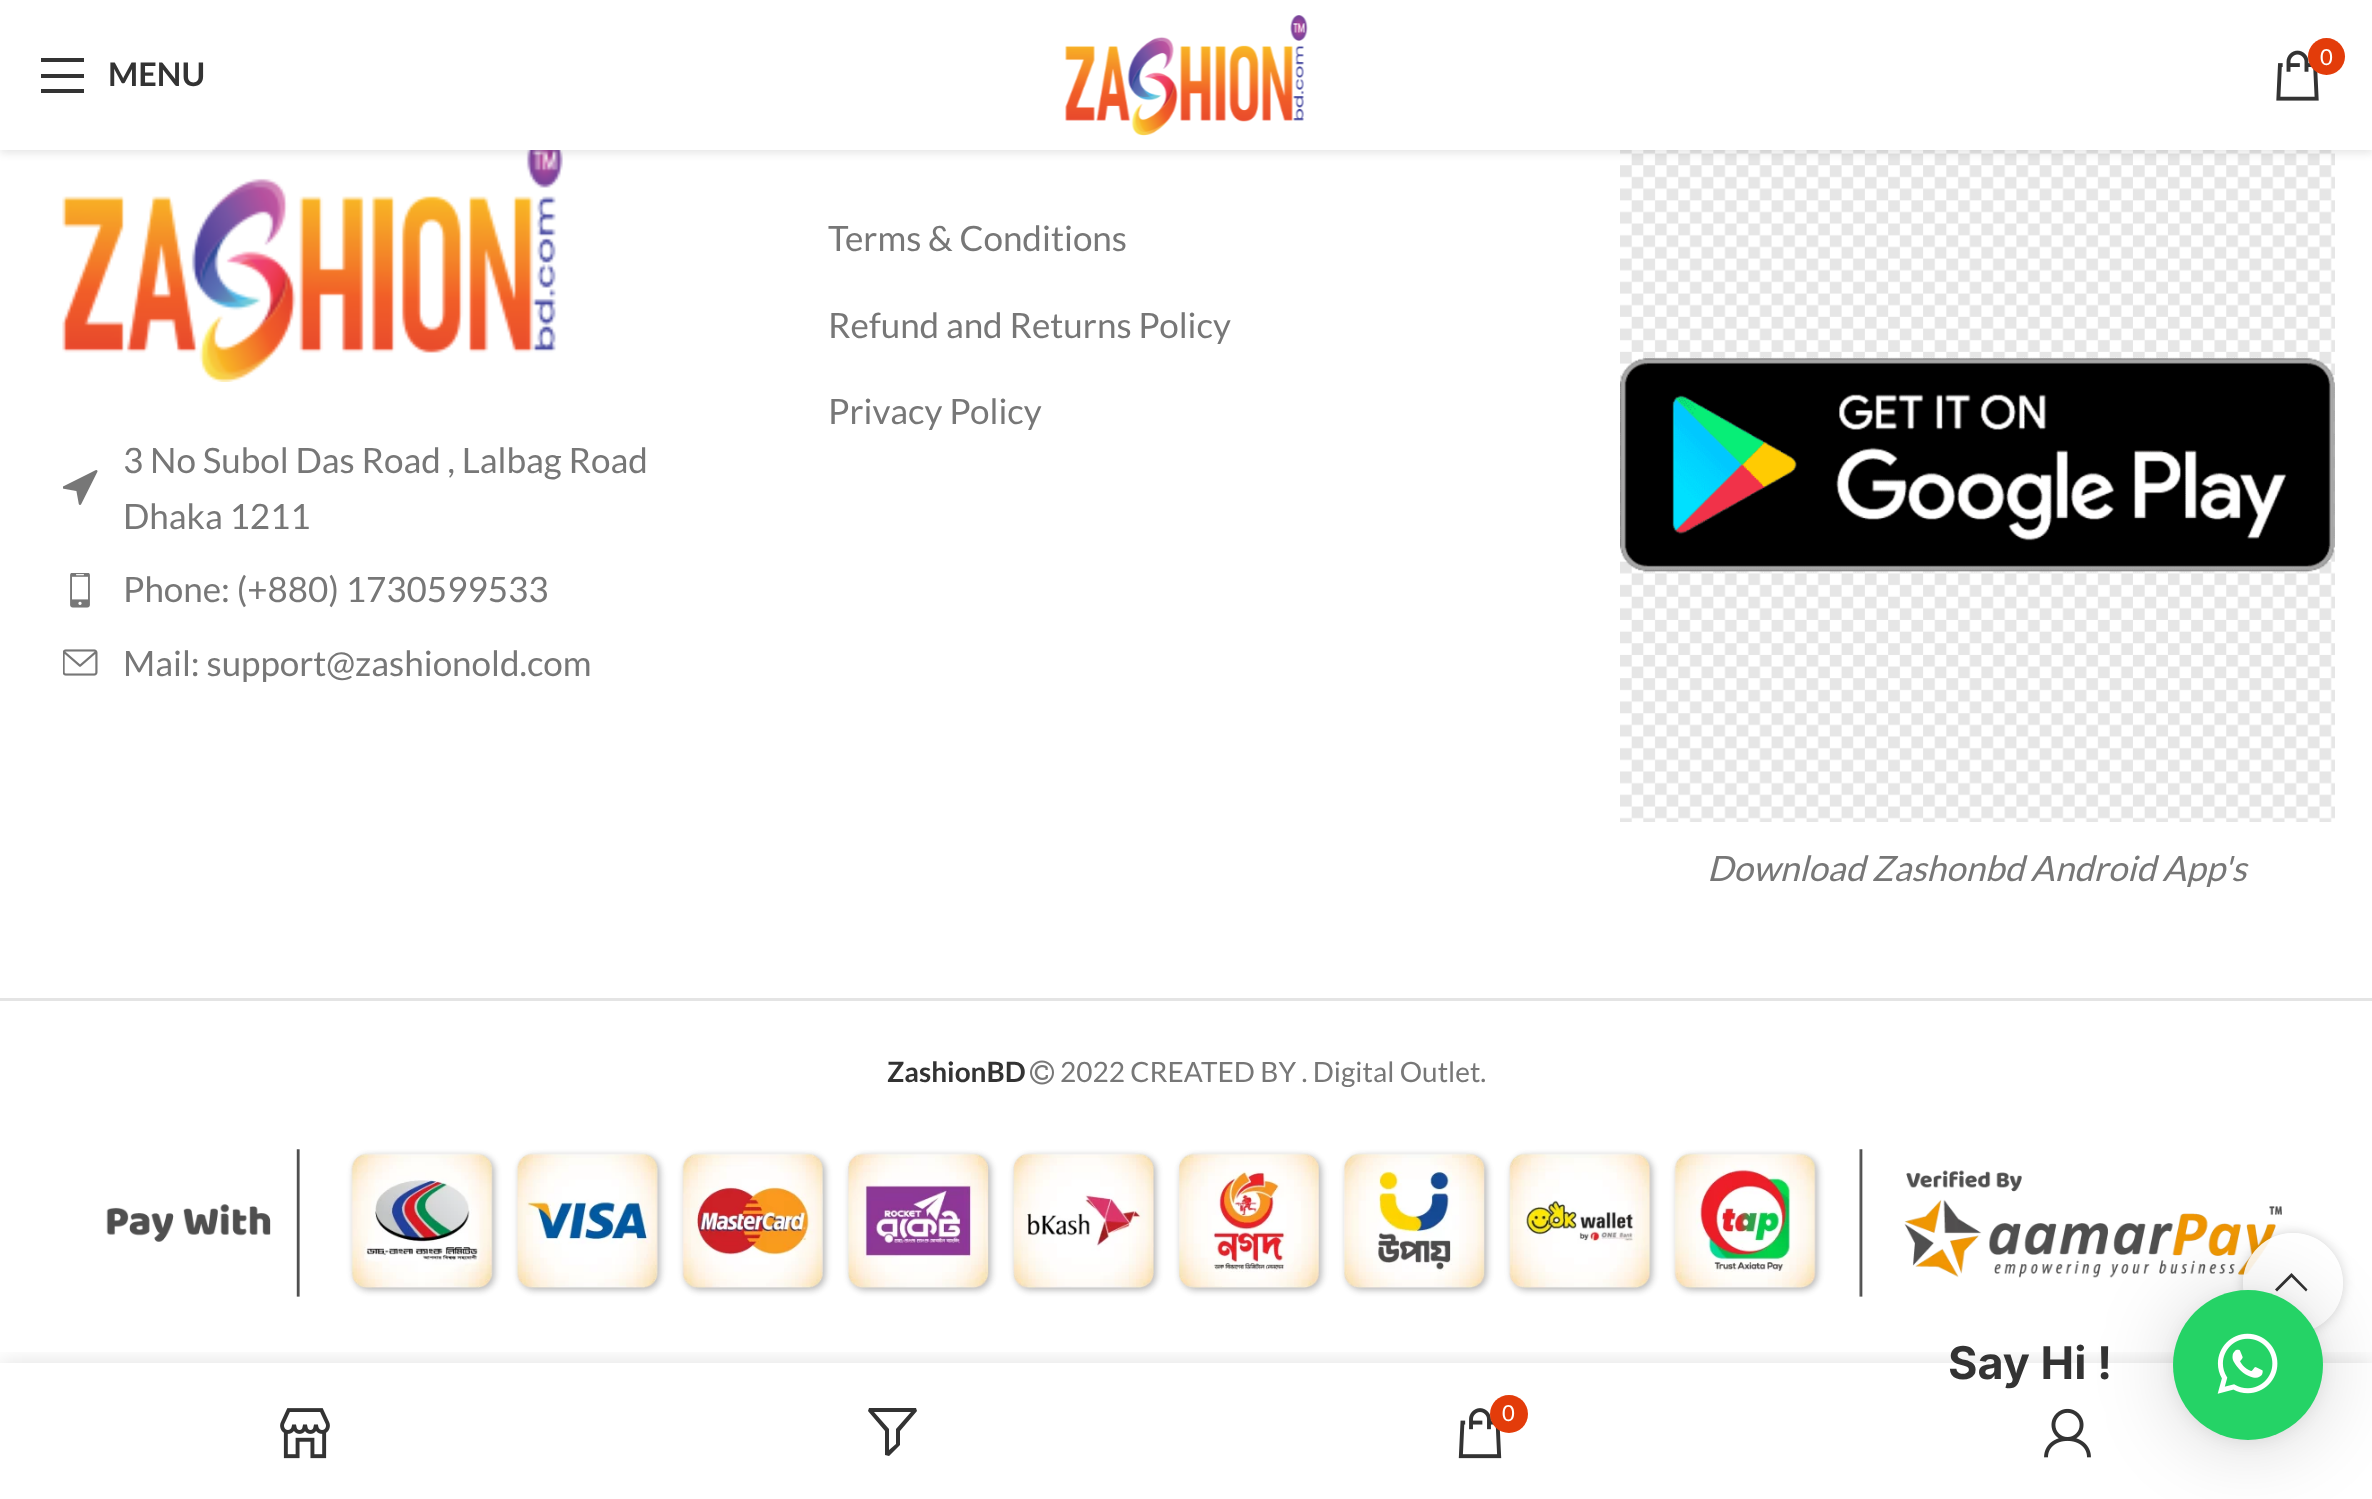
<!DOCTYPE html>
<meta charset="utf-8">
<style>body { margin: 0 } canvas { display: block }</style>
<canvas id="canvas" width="2372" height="1499"></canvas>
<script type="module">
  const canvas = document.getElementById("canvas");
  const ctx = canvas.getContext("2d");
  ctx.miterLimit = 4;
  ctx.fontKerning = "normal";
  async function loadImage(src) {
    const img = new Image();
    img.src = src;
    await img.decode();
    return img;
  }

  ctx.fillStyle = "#ffffff";
  ctx.fillRect(0, 0, 2372, 1499);
  ctx.drawImage(await loadImage("img3.png"), 62, 150, 501, 232);
  ctx.drawImage(await loadImage("img7.png"), 1620, 150, 715, 672);
  ctx.fillStyle = "rgba(0, 0, 0, 0.1)";
  ctx.filter = "blur(4px)";
  ctx.beginPath();
  ctx.rect(0, 3, 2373, 150);
  ctx.fill();
  ctx.filter = "none";
  ctx.fillStyle = "#ffffff";
  ctx.fillRect(0, 0, 2372, 150);
  ctx.drawImage(await loadImage("img1.png"), 1065, 15, 243, 121);
  ctx.drawImage(await loadImage("img2.png"), 2276, 50, 43, 51);
  ctx.fillStyle = "#e33c0a";
  ctx.beginPath();
  ctx.arc(2326.5, 56.5, 18.5, 0, Math.PI * 2);
  ctx.fill();
  ctx.font = "22px Lato";
  ctx.fillStyle = "#ffffff";
  ctx.fillText("0", 2320, 65);
  ctx.fillStyle = "#333333";
  ctx.beginPath();
  ctx.moveTo(41, 62);
  ctx.lineTo(84, 62);
  ctx.lineTo(84, 58);
  ctx.lineTo(41, 58);
  ctx.closePath();
  ctx.moveTo(41, 78);
  ctx.lineTo(84, 78);
  ctx.lineTo(84, 74);
  ctx.lineTo(41, 74);
  ctx.closePath();
  ctx.moveTo(41, 93);
  ctx.lineTo(84, 93);
  ctx.lineTo(84, 89);
  ctx.lineTo(41, 89);
  ctx.closePath();
  ctx.fill();
  ctx.font = "bold 32.5px Lato";
  ctx.fillText("MENU", 108, 86);
  ctx.font = "35px Lato";
  ctx.fillStyle = "#777777";
  ctx.fillText("Terms & Conditions", 828, 251);
  ctx.fillText("Refund and Returns Policy", 828, 338);
  ctx.fillText("Privacy Policy", 828, 424);
  ctx.drawImage(await loadImage("img4.png"), 63, 470, 35, 35);
  ctx.fillText("3 No Subol Das Road , Lalbag Road", 123, 473);
  ctx.fillText("Dhaka 1211", 123, 529);
  ctx.drawImage(await loadImage("img5.png"), 70, 573, 20, 35);
  ctx.fillText("Phone: (+880) 1730599533", 123, 602);
  ctx.drawImage(await loadImage("img6.png"), 63, 649, 35, 27);
  ctx.fillText("Mail: support@zashionold.com", 123, 676);
  ctx.font = "italic 35px Lato";
  ctx.fillText("Download Zashonbd Android App's", 1707, 881);
  ctx.fillStyle = "#e4e4e4";
  ctx.fillRect(0, 998, 2372, 3);
  ctx.font = "bold 28px Lato";
  ctx.fillStyle = "#333333";
  ctx.fillText("ZashionBD", 887, 1082);
  ctx.drawImage(await loadImage("img8.png"), 1030, 1060, 24, 25);
  ctx.font = "28px Lato";
  ctx.fillStyle = "#777777";
  ctx.fillText("2022 CREATED BY . Digital Outlet.", 1060, 1082);
  ctx.drawImage(await loadImage("img9.png"), 106, 1149, 2176, 148);
  ctx.save();
  ctx.beginPath();
  ctx.moveTo(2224, 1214);
  ctx.lineTo(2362, 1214);
  ctx.lineTo(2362, 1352);
  ctx.lineTo(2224, 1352);
  ctx.closePath();
  ctx.moveTo(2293, 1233);
  ctx.bezierCurveTo(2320.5, 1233, 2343, 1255.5, 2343, 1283);
  ctx.bezierCurveTo(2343, 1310.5, 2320.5, 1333, 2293, 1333);
  ctx.bezierCurveTo(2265.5, 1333, 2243, 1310.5, 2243, 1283);
  ctx.bezierCurveTo(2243, 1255.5, 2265.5, 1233, 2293, 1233);
  ctx.closePath();
  ctx.clip("evenodd");
  ctx.fillStyle = "rgba(0, 0, 0, 0.17)";
  ctx.filter = "blur(6px)";
  ctx.beginPath();
  ctx.roundRect(2243, 1233, 100, 100, 50);
  ctx.fill();
  ctx.filter = "none";
  ctx.restore();
  ctx.fillStyle = "rgba(255, 255, 255, 0.9)";
  ctx.beginPath();
  ctx.arc(2293, 1283, 50, 0, Math.PI * 2);
  ctx.fill();
  ctx.fillStyle = "#333333";
  ctx.beginPath();
  ctx.moveTo(2306, 1291.5);
  ctx.lineTo(2307.5, 1289.5);
  ctx.lineTo(2291.5, 1273);
  ctx.lineTo(2275, 1289.5);
  ctx.lineTo(2277, 1291.5);
  ctx.lineTo(2291.5, 1277);
  ctx.closePath();
  ctx.fill();
  ctx.save();
  ctx.beginPath();
  ctx.rect(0, 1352, 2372, 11);
  ctx.clip();
  ctx.fillStyle = "rgba(0, 0, 0, 0.12)";
  ctx.filter = "blur(11px)";
  ctx.beginPath();
  ctx.rect(0, 1363, 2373, 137);
  ctx.fill();
  ctx.filter = "none";
  ctx.restore();
  ctx.drawImage(await loadImage("img13.png"), 2044, 1408, 47, 50);
  ctx.fillStyle = "rgba(0, 0, 0, 0.16)";
  ctx.filter = "blur(40px)";
  ctx.beginPath();
  ctx.roundRect(2173, 1295, 150, 150, 75);
  ctx.fill();
  ctx.filter = "none";
  ctx.fillStyle = "rgba(0, 0, 0, 0.06)";
  ctx.filter = "blur(7.5px)";
  ctx.beginPath();
  ctx.roundRect(2173, 1293, 150, 150, 75);
  ctx.fill();
  ctx.filter = "none";
  ctx.fillStyle = "#25d366";
  ctx.beginPath();
  ctx.arc(2248, 1365, 75, 0, Math.PI * 2);
  ctx.fill();
  ctx.font = "bold 45px Inter";
  ctx.fillStyle = "#333333";
  ctx.fillText("Say Hi !", 1948, 1379);
  ctx.drawImage(await loadImage("img10.png"), 2217, 1333, 61, 61);
  ctx.drawImage(await loadImage("img11.png"), 280, 1408, 50, 51);
  ctx.beginPath();
  ctx.moveTo(869, 1408);
  ctx.lineTo(868, 1411);
  ctx.lineTo(885, 1431);
  ctx.lineTo(885, 1455);
  ctx.lineTo(889, 1456);
  ctx.lineTo(900, 1445);
  ctx.lineTo(900, 1431);
  ctx.lineTo(917, 1411);
  ctx.lineTo(916, 1408);
  ctx.closePath();
  ctx.moveTo(874, 1412);
  ctx.lineTo(911, 1412);
  ctx.lineTo(896, 1429);
  ctx.lineTo(896, 1444);
  ctx.lineTo(889, 1450);
  ctx.lineTo(889, 1429);
  ctx.closePath();
  ctx.fill();
  ctx.drawImage(await loadImage("img12.png"), 1458, 1408, 44, 51);
  ctx.fillStyle = "#e33c0a";
  ctx.beginPath();
  ctx.arc(1509, 1414, 19, 0, Math.PI * 2);
  ctx.fill();
  ctx.font = "22px Lato";
  ctx.fillStyle = "#ffffff";
  ctx.fillText("0", 1502, 1421);
</script>
